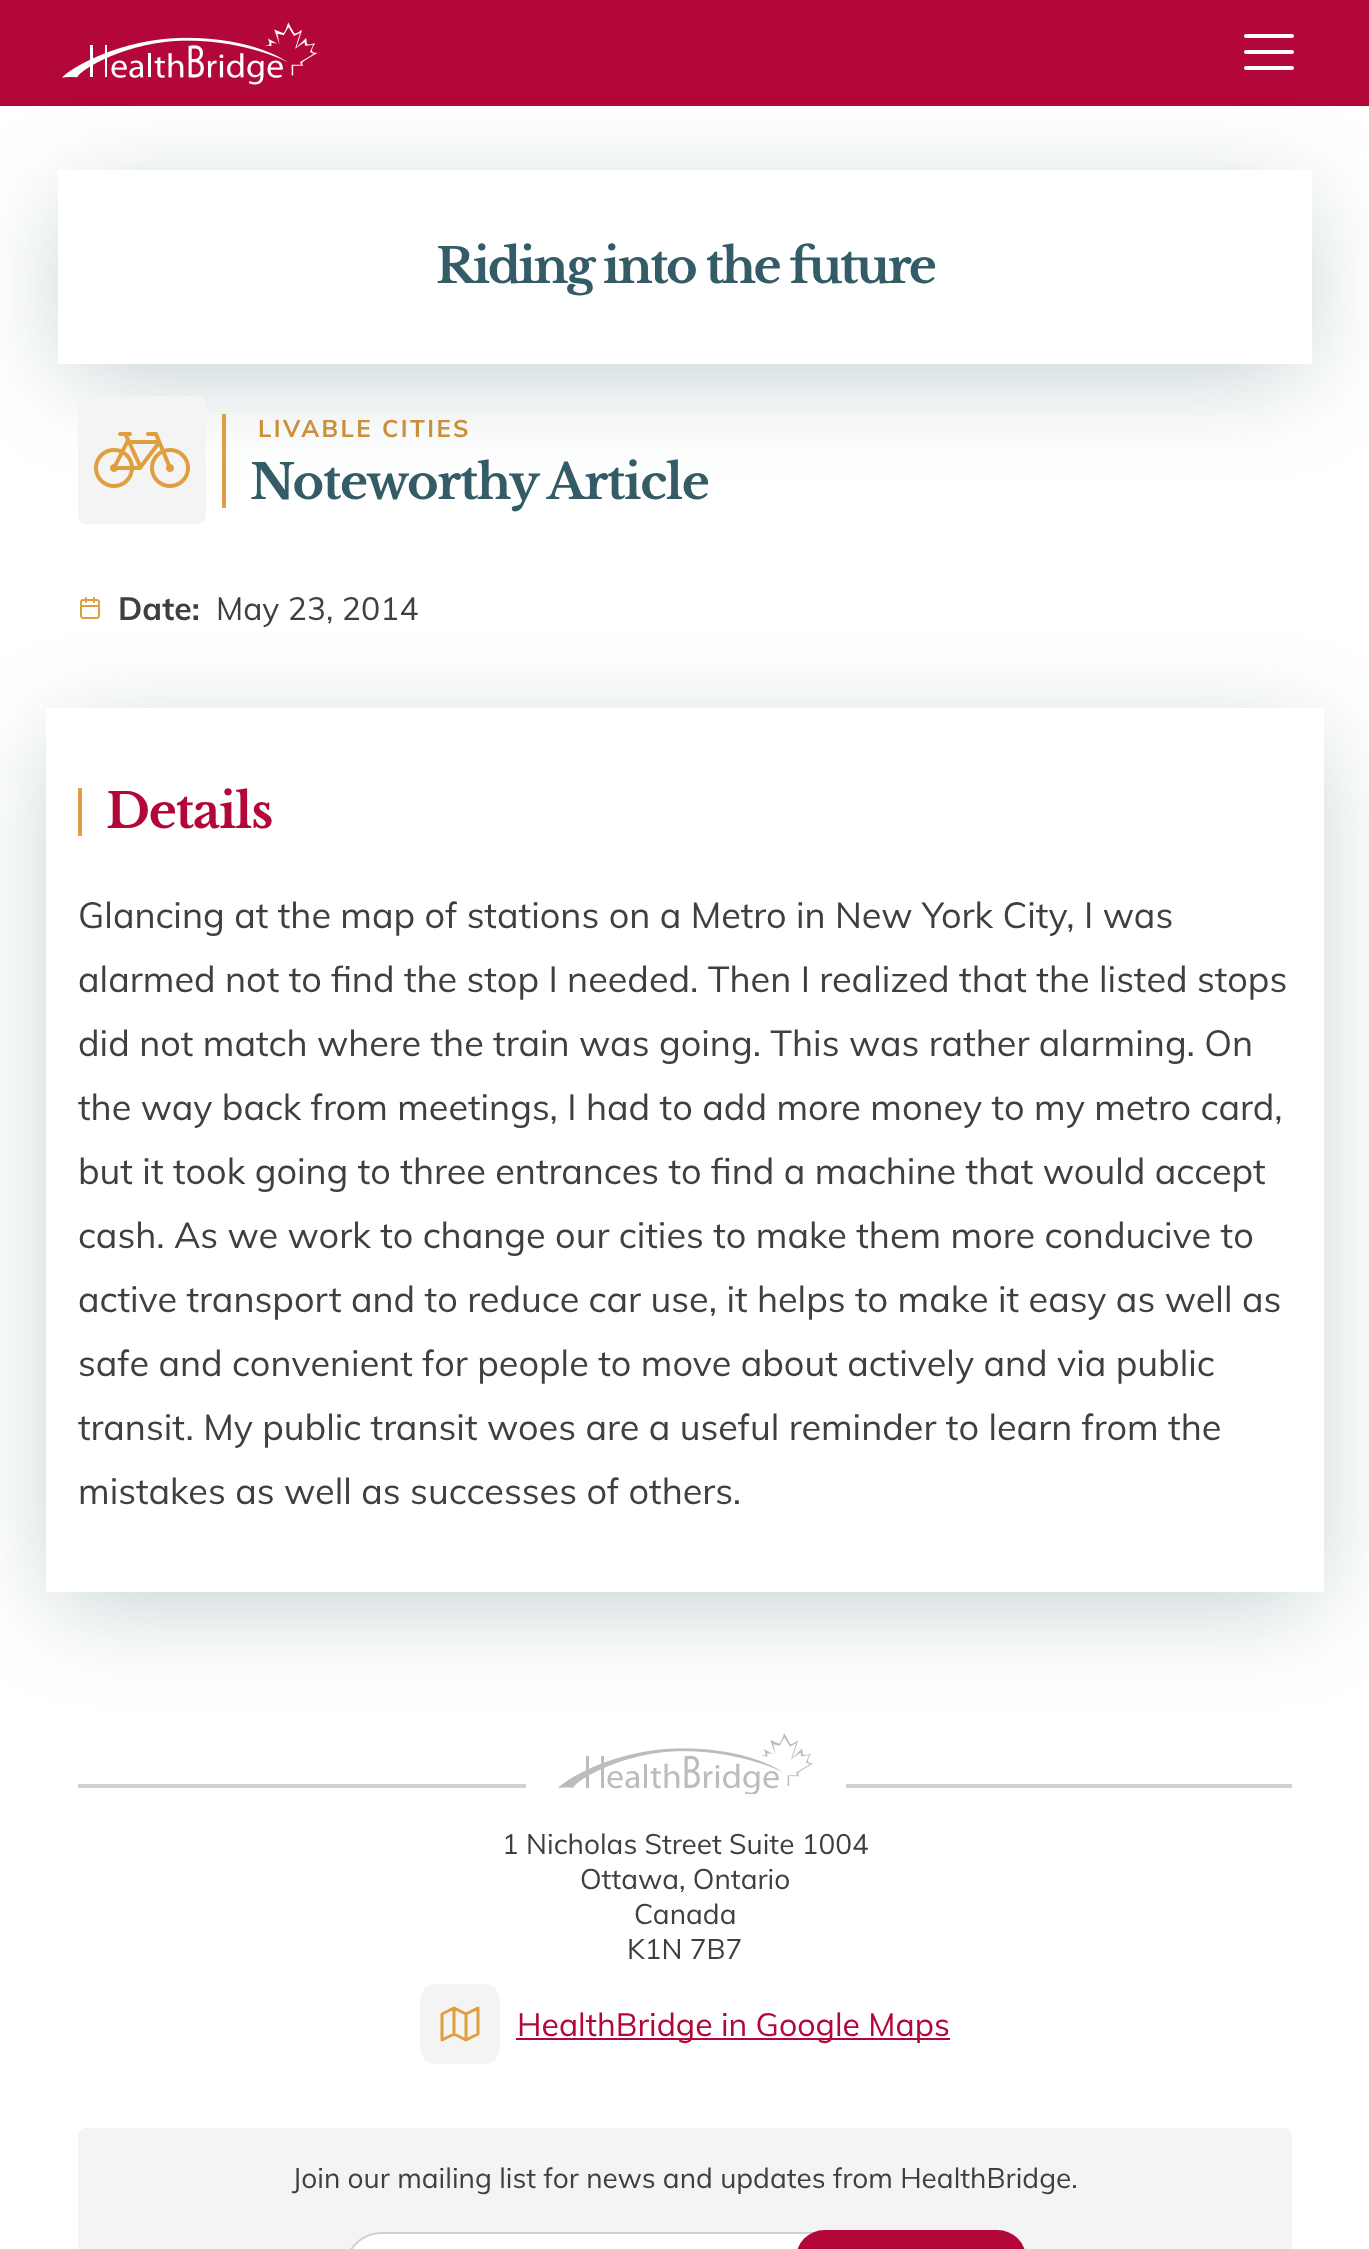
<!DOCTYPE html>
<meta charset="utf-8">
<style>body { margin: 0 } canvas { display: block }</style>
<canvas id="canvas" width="1369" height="2249"></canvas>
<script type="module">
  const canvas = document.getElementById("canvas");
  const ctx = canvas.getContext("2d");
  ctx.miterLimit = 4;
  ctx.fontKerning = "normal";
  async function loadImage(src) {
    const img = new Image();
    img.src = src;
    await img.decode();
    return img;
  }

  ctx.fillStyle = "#ffffff";
  ctx.fillRect(0, 0, 1369, 2249);
  ctx.fillStyle = "#b30739";
  ctx.fillRect(0, 0, 1369, 106);
  ctx.save();
  ctx.beginPath();
  ctx.moveTo(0, 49);
  ctx.lineTo(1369, 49);
  ctx.lineTo(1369, 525);
  ctx.lineTo(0, 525);
  ctx.closePath();
  ctx.moveTo(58, 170);
  ctx.lineTo(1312, 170);
  ctx.lineTo(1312, 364);
  ctx.lineTo(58, 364);
  ctx.closePath();
  ctx.clip("evenodd");
  ctx.fillStyle = "rgba(51, 92, 103, 0.3)";
  ctx.filter = "blur(50px)";
  ctx.beginPath();
  ctx.rect(68, 200, 1234, 174);
  ctx.fill();
  ctx.filter = "none";
  ctx.restore();
  ctx.drawImage(await loadImage("img1.png"), 62, 22, 256, 63);
  ctx.fillStyle = "#ffffff";
  ctx.beginPath();
  ctx.roundRect(1244, 50, 50, 4, 2);
  ctx.fill();
  ctx.beginPath();
  ctx.roundRect(1244, 34, 50, 4, 2);
  ctx.fill();
  ctx.beginPath();
  ctx.roundRect(1244, 66, 50, 4, 2);
  ctx.fill();
  ctx.letterSpacing = "-2.4px";
  ctx.font = "bold 48px Libre Baskerville";
  ctx.fillStyle = "#335c67";
  ctx.fillText("Riding into the future", 436, 283);
  ctx.fillStyle = "#f4f4f4";
  ctx.beginPath();
  ctx.roundRect(78, 396, 128, 128, 8);
  ctx.fill();
  ctx.drawImage(await loadImage("img2.png"), 94, 432, 96, 56);
  ctx.fillStyle = "#e09f3e";
  ctx.fillRect(222, 414, 4, 94);
  ctx.letterSpacing = "2.4px";
  ctx.font = "bold 24px Muli";
  ctx.fillStyle = "#ca8f38";
  ctx.fillText("LIVABLE CITIES", 258, 437);
  ctx.letterSpacing = "-1.25px";
  ctx.font = "bold 48px Libre Baskerville";
  ctx.fillStyle = "#335c67";
  ctx.fillText("Noteworthy Article", 250, 499);
  ctx.save();
  ctx.beginPath();
  ctx.moveTo(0, 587);
  ctx.lineTo(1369, 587);
  ctx.lineTo(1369, 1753);
  ctx.lineTo(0, 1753);
  ctx.closePath();
  ctx.moveTo(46, 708);
  ctx.lineTo(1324, 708);
  ctx.lineTo(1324, 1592);
  ctx.lineTo(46, 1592);
  ctx.closePath();
  ctx.clip("evenodd");
  ctx.fillStyle = "rgba(51, 92, 103, 0.3)";
  ctx.filter = "blur(50px)";
  ctx.beginPath();
  ctx.rect(56, 738, 1258, 864);
  ctx.fill();
  ctx.filter = "none";
  ctx.restore();
  ctx.drawImage(await loadImage("img3.png"), 80, 597, 20, 22);
  ctx.letterSpacing = "0px";
  ctx.font = "bold 32px Muli";
  ctx.fillStyle = "#3f3f3f";
  ctx.fillText("Date:", 118, 620);
  ctx.font = "32px Muli";
  ctx.fillText("May 23, 2014", 216, 620);
  ctx.fillStyle = "#e09f3e";
  ctx.fillRect(78, 788, 4, 48);
  ctx.letterSpacing = "-1.25px";
  ctx.font = "bold 48px Libre Baskerville";
  ctx.fillStyle = "#b30739";
  ctx.fillText("Details", 106, 828);
  ctx.letterSpacing = "0px";
  ctx.font = "36px Muli";
  ctx.fillStyle = "#3f3f3f";
  ctx.fillText("Glancing at the map of stations on a Metro in New York City, I was", 78, 928);
  ctx.fillText("alarmed not to find the stop I needed. Then I realized that the listed stops", 78, 992);
  ctx.fillText("did not match where the train was going. This was rather alarming. On", 78, 1056);
  ctx.fillText("the way back from meetings, I had to add more money to my metro card,", 78, 1120);
  ctx.fillText("but it took going to three entrances to find a machine that would accept", 78, 1184);
  ctx.fillText("cash. As we work to change our cities to make them more conducive to", 78, 1248);
  ctx.fillText("active transport and to reduce car use, it helps to make it easy as well as", 78, 1312);
  ctx.fillText("safe and convenient for people to move about actively and via public", 78, 1376);
  ctx.fillText("transit. My public transit woes are a useful reminder to learn from the", 78, 1440);
  ctx.fillText("mistakes as well as successes of others.", 78, 1504);
  ctx.fillStyle = "#d1d1d1";
  ctx.fillRect(78, 1784, 1214, 4);
  ctx.fillStyle = "#ffffff";
  ctx.fillRect(526, 1784, 320, 4);
  ctx.drawImage(await loadImage("img4.png"), 558, 1733, 256, 61);
  ctx.font = "28px Muli";
  ctx.fillStyle = "#3f3f3f";
  ctx.fillText("1 Nicholas Street Suite 1004", 502, 1854);
  ctx.fillText("Ottawa, Ontario", 580, 1889);
  ctx.fillText("Canada", 634, 1924);
  ctx.fillText("K1N 7B7", 627, 1959);
  ctx.fillStyle = "#f4f4f4";
  ctx.beginPath();
  ctx.roundRect(420, 1984, 80, 80, 16);
  ctx.fill();
  ctx.beginPath();
  ctx.moveTo(442, 2014);
  ctx.lineTo(454, 2008);
  ctx.lineTo(466, 2014);
  ctx.lineTo(478, 2008);
  ctx.lineTo(478, 2034);
  ctx.lineTo(466, 2040);
  ctx.lineTo(454, 2034);
  ctx.lineTo(442, 2040);
  ctx.lineTo(442, 2014);
  ctx.moveTo(454, 2008);
  ctx.lineTo(454, 2034);
  ctx.moveTo(466, 2014);
  ctx.lineTo(466, 2040);
  ctx.strokeStyle = "#e09f3e";
  ctx.lineWidth = 3;
  ctx.lineCap = "round";
  ctx.lineJoin = "round";
  ctx.stroke();
  ctx.fillStyle = "#b30739";
  ctx.fillRect(516, 2038, 434, 2);
  ctx.font = "32px Muli";
  ctx.fillText("HealthBridge in Google Maps", 517, 2036);
  ctx.fillStyle = "#f4f4f4";
  ctx.beginPath();
  ctx.roundRect(78, 2128, 1214, 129, 8);
  ctx.fill();
  ctx.font = "28px Muli";
  ctx.fillStyle = "#3f3f3f";
  ctx.fillText("Join our mailing list for news and updates from HealthBridge.", 292, 2188);
  ctx.fillStyle = "#ffffff";
  ctx.beginPath();
  ctx.moveTo(382, 2234);
  ctx.lineTo(820, 2234);
  ctx.lineTo(820, 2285);
  ctx.lineTo(382, 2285);
  ctx.bezierCurveTo(362, 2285, 346, 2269, 346, 2249);
  ctx.lineTo(346, 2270);
  ctx.bezierCurveTo(346, 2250, 362, 2234, 382, 2234);
  ctx.closePath();
  ctx.fill();
  ctx.fillStyle = "#d1d1d1";
  ctx.beginPath();
  ctx.moveTo(382, 2232);
  ctx.lineTo(820, 2232);
  ctx.lineTo(820, 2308);
  ctx.lineTo(382, 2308);
  ctx.bezierCurveTo(361, 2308, 344, 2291, 344, 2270);
  ctx.bezierCurveTo(344, 2249, 361, 2232, 382, 2232);
  ctx.closePath();
  ctx.moveTo(382, 2234);
  ctx.lineTo(820, 2234);
  ctx.lineTo(820, 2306);
  ctx.lineTo(382, 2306);
  ctx.bezierCurveTo(362, 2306, 346, 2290, 346, 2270);
  ctx.bezierCurveTo(346, 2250, 362, 2234, 382, 2234);
  ctx.closePath();
  ctx.fill("evenodd");
  ctx.fillStyle = "#b30739";
  ctx.beginPath();
  ctx.roundRect(796, 2230, 230, 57, 38);
  ctx.fill();
</script>
